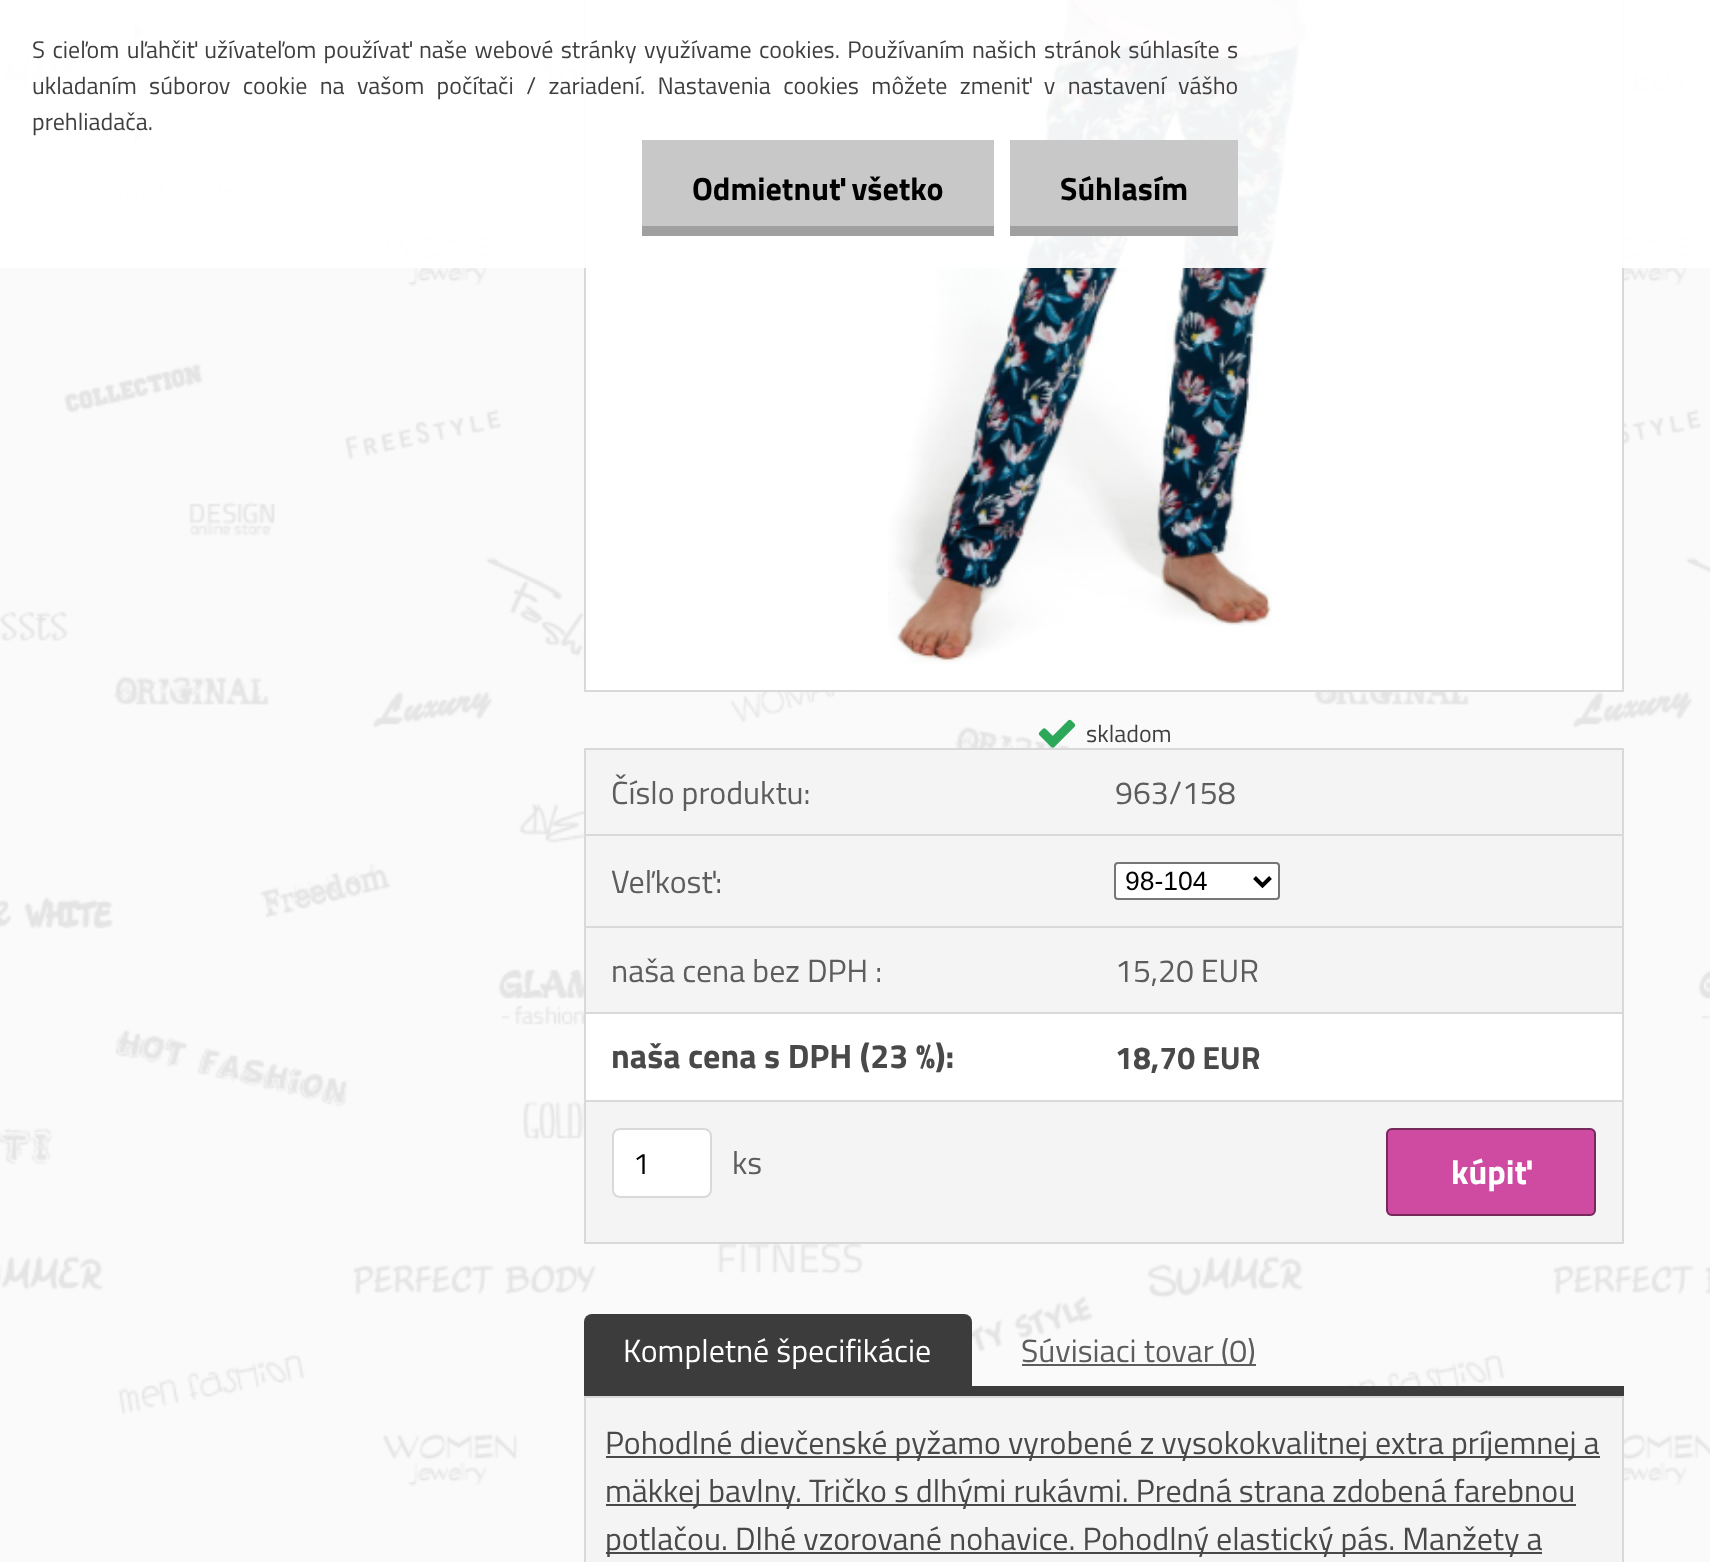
<!DOCTYPE html>
<meta charset="utf-8">
<style>body { margin: 0 } canvas { display: block }</style>
<canvas id="canvas" width="1710" height="1562"></canvas>
<script type="module">
  const canvas = document.getElementById("canvas");
  const ctx = canvas.getContext("2d");
  ctx.miterLimit = 4;
  ctx.fontKerning = "normal";
  async function loadImage(src) {
    const img = new Image();
    img.src = src;
    await img.decode();
    return img;
  }

  ctx.fillStyle = "#fafafa";
  ctx.fillRect(0, 0, 1710, 1562);
  ctx.drawImage(await loadImage("img1.png"), 0, 55, 1710, 1432);
  ctx.fillStyle = "#ffffff";
  ctx.fillRect(90, 0, 452, 76);
  ctx.fillStyle = "#f0f0f0";
  ctx.fillRect(542, 0, 2, 180);
  ctx.fillRect(88, 76, 456, 2);
  ctx.fillRect(88, 0, 2, 78);
  ctx.drawImage(await loadImage("img2.png"), 134, 21, 11, 19);
  ctx.fillStyle = "#ffffff";
  ctx.fillRect(90, 78, 452, 100);
  ctx.fillStyle = "#f0f0f0";
  ctx.fillRect(88, 178, 456, 2);
  ctx.fillRect(88, 78, 2, 102);
  ctx.drawImage(await loadImage("img2.png"), 134, 123, 11, 19);
  ctx.strokeStyle = "#d9d9d9";
  ctx.lineWidth = 2;
  ctx.strokeRect(585, -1, 1038, 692);
  ctx.fillStyle = "#ffffff";
  ctx.fillRect(586, 0, 1036, 690);
  ctx.drawImage(await loadImage("img3.png"), 888, 0, 423, 664);
  ctx.fillStyle = "rgba(255, 255, 255, 0.95)";
  ctx.fillRect(0, 0, 1710, 268);
  ctx.wordSpacing = "2.1px";
  ctx.font = "24px Titillium Web";
  ctx.fillStyle = "#3f3f3f";
  ctx.fillText("S cieľom uľahčiť užívateľom používať naše webové stránky využívame cookies. Používaním našich stránok súhlasíte s", 32, 58);
  ctx.wordSpacing = "7.1px";
  ctx.fillText("ukladaním súborov cookie na vašom počítači / zariadení. Nastavenia cookies môžete zmeniť v nastavení vášho", 32, 94);
  ctx.wordSpacing = "0px";
  ctx.fillText("prehliadača.", 32, 130);
  ctx.fillStyle = "#c8c8c8";
  ctx.fillRect(642, 140, 352, 86);
  ctx.fillStyle = "#a0a0a0";
  ctx.fillRect(642, 226, 352, 10);
  ctx.font = "bold 32px Titillium Web";
  ctx.fillStyle = "#000000";
  ctx.fillText("Odmietnuť všetko", 692, 200);
  ctx.fillStyle = "#c8c8c8";
  ctx.fillRect(1010, 140, 228, 86);
  ctx.fillStyle = "#a0a0a0";
  ctx.fillRect(1010, 226, 228, 10);
  ctx.fillStyle = "#000000";
  ctx.fillText("Súhlasím", 1060, 200);
  ctx.drawImage(await loadImage("img4.png"), 1038, 719, 38, 29);
  ctx.font = "24px Titillium Web";
  ctx.fillStyle = "#3f3f3f";
  ctx.fillText("skladom", 1086, 742);
  ctx.fillStyle = "#ffffff";
  ctx.fillRect(586, 1014, 1036, 86);
  ctx.fillStyle = "#d9d9d9";
  ctx.fillRect(584, 748, 1040, 2);
  ctx.fillRect(1622, 748, 2, 496);
  ctx.fillRect(584, 1242, 1040, 2);
  ctx.fillRect(584, 748, 2, 496);
  ctx.fillStyle = "#f4f4f4";
  ctx.fillRect(586, 750, 1036, 84);
  ctx.font = "32px Titillium Web";
  ctx.fillStyle = "#5d5d5d";
  ctx.fillText("Číslo produktu:", 611, 804);
  ctx.fillText("963/158", 1115, 804);
  ctx.fillStyle = "#f4f4f4";
  ctx.fillRect(586, 836, 1036, 90);
  ctx.fillStyle = "#d9d9d9";
  ctx.fillRect(584, 834, 1040, 2);
  ctx.fillStyle = "#5d5d5d";
  ctx.fillText("Veľkosť:", 611, 893);
  ctx.fillStyle = "#ffffff";
  ctx.beginPath();
  ctx.roundRect(1115, 863, 164, 36, 3);
  ctx.fill();
  ctx.strokeStyle = "#767676";
  ctx.stroke();
  ctx.beginPath();
  ctx.moveTo(1254.5, 877.5);
  ctx.lineTo(1262.5, 885.5);
  ctx.lineTo(1270.5, 877.5);
  ctx.strokeStyle = "#000000";
  ctx.lineWidth = 4;
  ctx.stroke();
  ctx.font = "26.5px Liberation Sans";
  ctx.fillStyle = "#000000";
  ctx.fillText("98-104", 1125, 890);
  ctx.fillStyle = "#f4f4f4";
  ctx.fillRect(586, 928, 1036, 84);
  ctx.fillStyle = "#d9d9d9";
  ctx.fillRect(584, 926, 1040, 2);
  ctx.font = "32px Titillium Web";
  ctx.fillStyle = "#5d5d5d";
  ctx.fillText("naša cena bez DPH :", 611, 982);
  ctx.fillText("15,20 EUR", 1115, 982);
  ctx.fillStyle = "#d9d9d9";
  ctx.fillRect(584, 1012, 1040, 2);
  ctx.font = "bold 34px Titillium Web";
  ctx.fillStyle = "#494949";
  ctx.fillText("naša cena s DPH (23 %):", 611, 1068);
  ctx.font = "bold 32px Titillium Web";
  ctx.fillText("18,70 EUR", 1115, 1069);
  ctx.fillStyle = "#f4f4f4";
  ctx.fillRect(586, 1102, 1036, 140);
  ctx.fillStyle = "#d9d9d9";
  ctx.fillRect(584, 1100, 1040, 2);
  ctx.fillStyle = "#ffffff";
  ctx.beginPath();
  ctx.roundRect(613, 1129, 98, 68, 7);
  ctx.fill();
  ctx.strokeStyle = "#d9d9d9";
  ctx.lineWidth = 2;
  ctx.stroke();
  ctx.font = "30px Titillium Web";
  ctx.fillStyle = "#000000";
  ctx.fillText("1", 633, 1174);
  ctx.font = "32px Titillium Web";
  ctx.fillStyle = "#5d5d5d";
  ctx.fillText("ks", 732, 1174);
  ctx.fillStyle = "#cf4ba2";
  ctx.beginPath();
  ctx.roundRect(1386, 1128, 210, 88, 6);
  ctx.fill();
  ctx.beginPath();
  ctx.roundRect(1387, 1129, 208, 86, 5);
  ctx.strokeStyle = "rgba(0, 0, 0, 0.44)";
  ctx.stroke();
  ctx.font = "bold 34px Titillium Web";
  ctx.fillStyle = "#ffffff";
  ctx.fillText("kúpiť", 1451, 1184);
  ctx.fillStyle = "#3c3c3c";
  ctx.fillRect(584, 1386, 1040, 10);
  ctx.beginPath();
  ctx.roundRect(584, 1314, 388, 72, [8, 8, 0, 0]);
  ctx.fill();
  ctx.font = "32px Titillium Web";
  ctx.fillStyle = "#ffffff";
  ctx.fillText("Kompletné špecifikácie", 623, 1362);
  ctx.fillStyle = "#5d5d5d";
  ctx.fillRect(1022, 1364, 234, 2);
  ctx.fillText("Súvisiaci tovar (0)", 1021, 1362);
  ctx.fillStyle = "#f4f4f4";
  ctx.beginPath();
  ctx.rect(585, 1397, 1038, 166);
  ctx.fill();
  ctx.strokeStyle = "#d9d9d9";
  ctx.stroke();
  ctx.fillStyle = "#494949";
  ctx.fillRect(606, 1456, 994, 2);
  ctx.fillText("Pohodlné dievčenské pyžamo vyrobené z vysokokvalitnej extra príjemnej a", 605, 1454);
  ctx.fillRect(606, 1504, 970, 2);
  ctx.fillText("mäkkej bavlny. Tričko s dlhými rukávmi. Predná strana zdobená farebnou", 605, 1502);
  ctx.fillRect(606, 1552, 936, 2);
  ctx.fillText("potlačou. Dlhé vzorované nohavice. Pohodlný elastický pás. Manžety a", 605, 1550);
</script>
